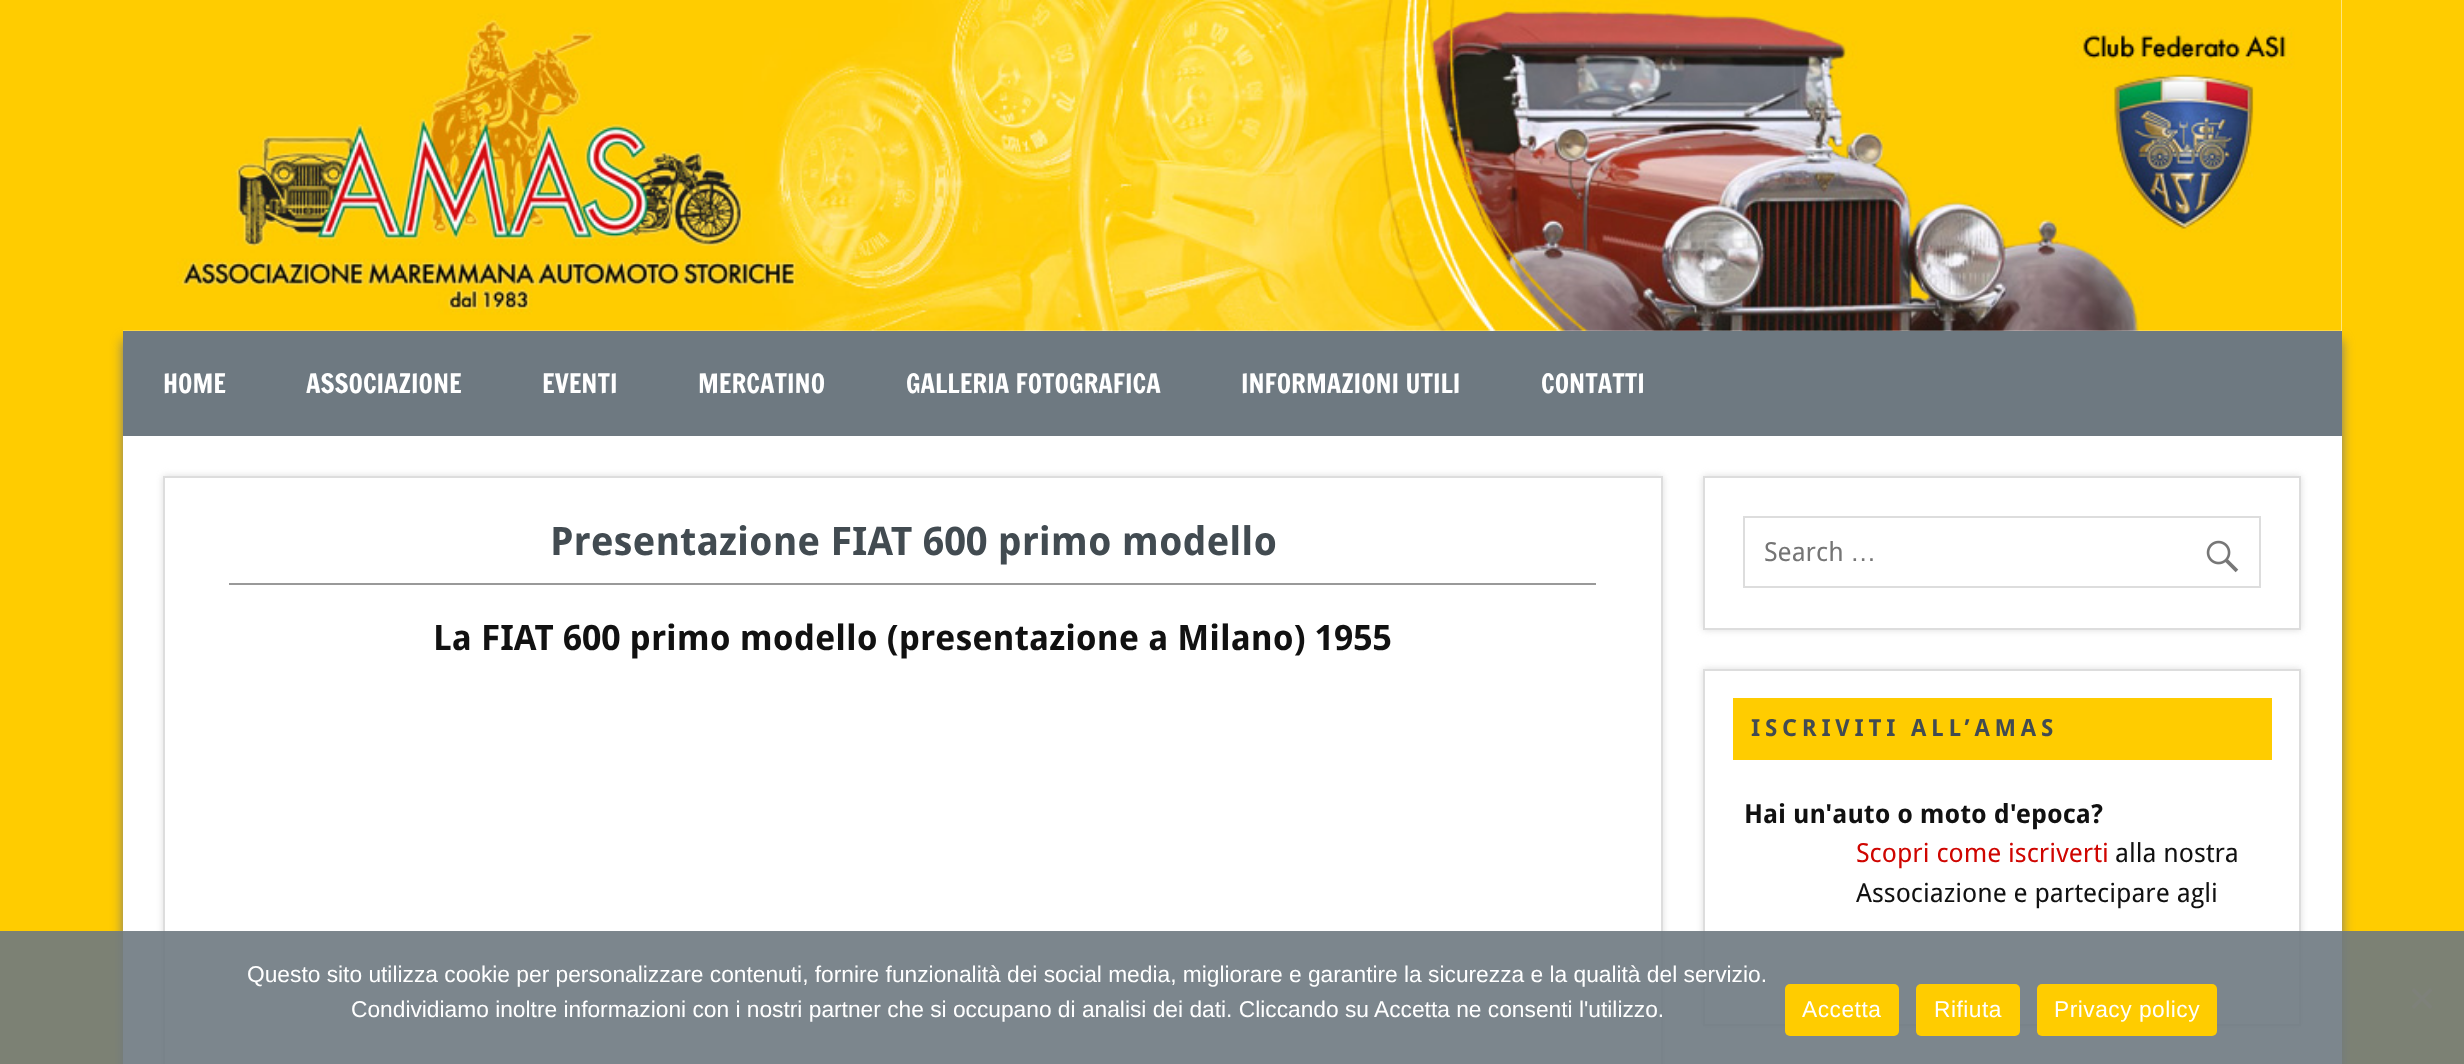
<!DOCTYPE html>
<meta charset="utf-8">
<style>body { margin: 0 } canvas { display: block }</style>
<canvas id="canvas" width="2464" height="1064"></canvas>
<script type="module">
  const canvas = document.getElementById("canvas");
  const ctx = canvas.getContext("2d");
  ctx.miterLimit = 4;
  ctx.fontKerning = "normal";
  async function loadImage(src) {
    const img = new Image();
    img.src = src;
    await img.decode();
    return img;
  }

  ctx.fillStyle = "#ffcc00";
  ctx.fillRect(0, 0, 2464, 1064);
  ctx.fillStyle = "#787878";
  ctx.filter = "blur(6px)";
  ctx.beginPath();
  ctx.rect(123, 340, 2219, 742);
  ctx.fill();
  ctx.filter = "none";
  ctx.fillStyle = "#ffffff";
  ctx.fillRect(123, 0, 2219, 1064);
  ctx.drawImage(await loadImage("img1.png"), 123, 0, 2219, 331);
  ctx.fillStyle = "#6e7981";
  ctx.fillRect(123, 331, 2219, 105);
  ctx.font = "26.25px Francois One";
  ctx.fillStyle = "#ffffff";
  ctx.fillText("HOME", 163, 393);
  ctx.fillText("ASSOCIAZIONE", 306, 393);
  ctx.fillText("EVENTI", 542, 393);
  ctx.fillText("MERCATINO", 698, 393);
  ctx.fillText("GALLERIA FOTOGRAFICA", 906, 393);
  ctx.fillText("INFORMAZIONI UTILI", 1241, 393);
  ctx.fillText("CONTATTI", 1541, 393);
  ctx.fillStyle = "#dddddd";
  ctx.filter = "blur(3.5px)";
  ctx.beginPath();
  ctx.rect(163, 476, 1500, 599);
  ctx.fill();
  ctx.filter = "none";
  ctx.fillStyle = "#ffffff";
  ctx.beginPath();
  ctx.rect(164, 477, 1498, 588);
  ctx.fill();
  ctx.strokeStyle = "#dddddd";
  ctx.lineWidth = 2;
  ctx.stroke();
  ctx.fillStyle = "#999999";
  ctx.fillRect(229, 583, 1367, 2);
  ctx.font = "bold 39.4px Droid Sans";
  ctx.fillStyle = "#424b51";
  ctx.fillText("Presentazione FIAT 600 primo modello", 550, 555);
  ctx.font = "bold 35px Droid Sans";
  ctx.fillStyle = "#111111";
  ctx.fillText("La FIAT 600 primo modello (presentazione a Milano) 1955", 433, 650);
  ctx.save();
  ctx.beginPath();
  ctx.moveTo(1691, 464);
  ctx.lineTo(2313, 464);
  ctx.lineTo(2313, 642);
  ctx.lineTo(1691, 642);
  ctx.closePath();
  ctx.moveTo(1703, 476);
  ctx.lineTo(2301, 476);
  ctx.lineTo(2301, 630);
  ctx.lineTo(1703, 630);
  ctx.closePath();
  ctx.clip("evenodd");
  ctx.fillStyle = "#dddddd";
  ctx.filter = "blur(3.5px)";
  ctx.beginPath();
  ctx.rect(1703, 476, 598, 154);
  ctx.fill();
  ctx.filter = "none";
  ctx.restore();
  ctx.strokeRect(1704, 477, 596, 152);
  ctx.strokeRect(1744, 517, 516, 70);
  ctx.font = "26.25px Droid Sans";
  ctx.fillStyle = "#757575";
  ctx.fillText("Search", 1764, 561);
  ctx.font = "26.25px Liberation Sans";
  ctx.fillText("…", 1850, 561);
  ctx.drawImage(await loadImage("img2.png"), 2206, 540, 33, 33);
  ctx.fillStyle = "#dddddd";
  ctx.filter = "blur(3.5px)";
  ctx.beginPath();
  ctx.rect(1703, 669, 598, 357);
  ctx.fill();
  ctx.filter = "none";
  ctx.fillStyle = "#ffffff";
  ctx.beginPath();
  ctx.rect(1704, 670, 596, 355);
  ctx.fill();
  ctx.stroke();
  ctx.fillStyle = "#ffcc00";
  ctx.fillRect(1733, 698, 539, 62);
  ctx.letterSpacing = "4.75px";
  ctx.font = "bold 23.6px Droid Sans";
  ctx.fillStyle = "#424b51";
  ctx.fillText("ISCRIVITI ALL’AMAS", 1751, 736);
  ctx.letterSpacing = "0px";
  ctx.font = "bold 26.25px Droid Sans";
  ctx.fillStyle = "#111111";
  ctx.fillText("Hai un'auto o moto d'epoca?", 1744, 823);
  ctx.font = "26.25px Droid Sans";
  ctx.fillStyle = "#cf0500";
  ctx.fillText("Scopri come iscriverti", 1856, 862);
  ctx.fillStyle = "#111111";
  ctx.fillText("alla nostra", 2115, 862);
  ctx.fillText("Associazione e partecipare agli", 1856, 902);
  ctx.fillStyle = "rgba(110, 121, 129, 0.9)";
  ctx.fillRect(0, 931, 2464, 133);
  ctx.font = "22.75px Liberation Sans";
  ctx.fillStyle = "#ffffff";
  ctx.fillText("Questo sito utilizza cookie per personalizzare contenuti, fornire funzionalità dei social media, migliorare e garantire la sicurezza e la qualità del servizio.", 247, 982);
  ctx.fillText("Condividiamo inoltre informazioni con i nostri partner che si occupano di analisi dei dati. Cliccando su Accetta ne consenti l'utilizzo.", 351, 1017);
  ctx.fillStyle = "#ffcc00";
  ctx.beginPath();
  ctx.roundRect(1785, 984, 114, 52, 5);
  ctx.fill();
  ctx.letterSpacing = "0.5px";
  ctx.fillStyle = "#ffffff";
  ctx.fillText("Accetta", 1802, 1017);
  ctx.fillStyle = "#ffcc00";
  ctx.beginPath();
  ctx.roundRect(1916, 984, 104, 52, 5);
  ctx.fill();
  ctx.fillStyle = "#ffffff";
  ctx.fillText("Rifiuta", 1934, 1017);
  ctx.fillStyle = "#ffcc00";
  ctx.beginPath();
  ctx.roundRect(2037, 984, 180, 52, 5);
  ctx.fill();
  ctx.fillStyle = "#ffffff";
  ctx.fillText("Privacy policy", 2054, 1017);
  ctx.fillStyle = "#7e817a";
  ctx.beginPath();
  ctx.moveTo(2430, 988);
  ctx.lineTo(2432.5, 990.5);
  ctx.lineTo(2414, 1009);
  ctx.lineTo(2411.5, 1006.5);
  ctx.closePath();
  ctx.fill();
  ctx.beginPath();
  ctx.moveTo(2411.5, 990.5);
  ctx.lineTo(2414, 988);
  ctx.lineTo(2432.5, 1006.5);
  ctx.lineTo(2430, 1009);
  ctx.closePath();
  ctx.fill();
</script>
